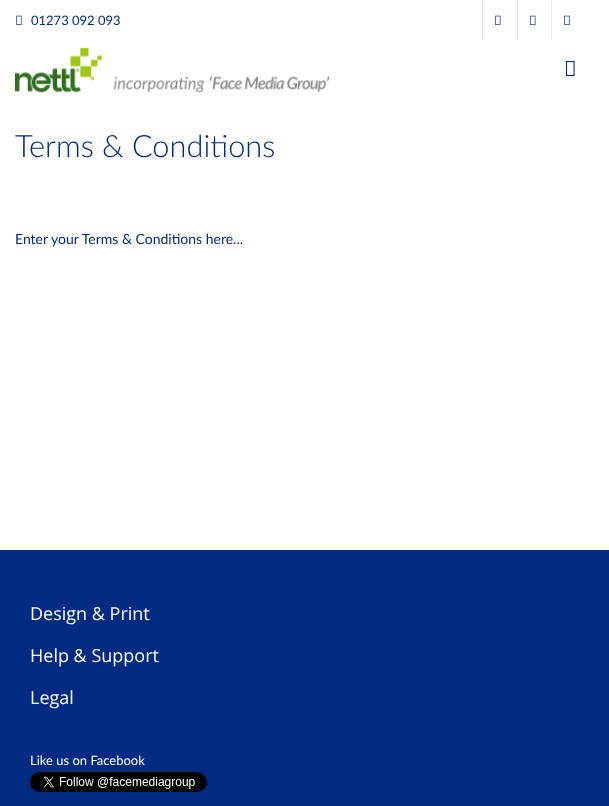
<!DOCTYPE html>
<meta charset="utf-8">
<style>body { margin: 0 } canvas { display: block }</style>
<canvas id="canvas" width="609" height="806"></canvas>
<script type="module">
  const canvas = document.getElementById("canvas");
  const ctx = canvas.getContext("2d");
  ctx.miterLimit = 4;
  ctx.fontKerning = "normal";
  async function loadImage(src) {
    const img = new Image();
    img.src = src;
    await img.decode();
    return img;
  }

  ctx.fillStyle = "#ffffff";
  ctx.fillRect(0, 0, 609, 806);
  ctx.drawImage(await loadImage("img1.png"), 16, 15, 6, 10);
  ctx.font = "13px Lato";
  ctx.fillStyle = "#012a82";
  ctx.fillText("01273 092 093", 31, 25);
  ctx.fillStyle = "#e6e6e6";
  ctx.fillRect(482, 0, 1, 40);
  ctx.drawImage(await loadImage("img2.png"), 495, 15, 6, 10);
  ctx.fillRect(517, 0, 1, 40);
  ctx.drawImage(await loadImage("img2.png"), 530, 15, 6, 10);
  ctx.fillRect(551, 0, 1, 40);
  ctx.drawImage(await loadImage("img1.png"), 564, 15, 6, 10);
  ctx.drawImage(await loadImage("img3.png"), 15, 47, 315, 46);
  ctx.drawImage(await loadImage("img4.png"), 565, 61, 10, 15);
  ctx.font = "300 30.75px Lato";
  ctx.fillStyle = "#012a82";
  ctx.fillText("Terms & Conditions", 15, 157);
  ctx.font = "14px Lato";
  ctx.fillText("Enter your Terms & Conditions here...", 15, 244);
  ctx.fillRect(0, 550, 609, 256);
  ctx.font = "18px Open Sans";
  ctx.fillStyle = "#ffffff";
  ctx.fillText("Design & Print", 30, 620);
  ctx.fillText("Help & Support", 30, 662);
  ctx.fillText("Legal", 30, 704);
  ctx.font = "13px Lato";
  ctx.fillText("Like us on Facebook", 30, 765);
  ctx.drawImage(await loadImage("img5.png"), 30, 772, 177, 20);
</script>
